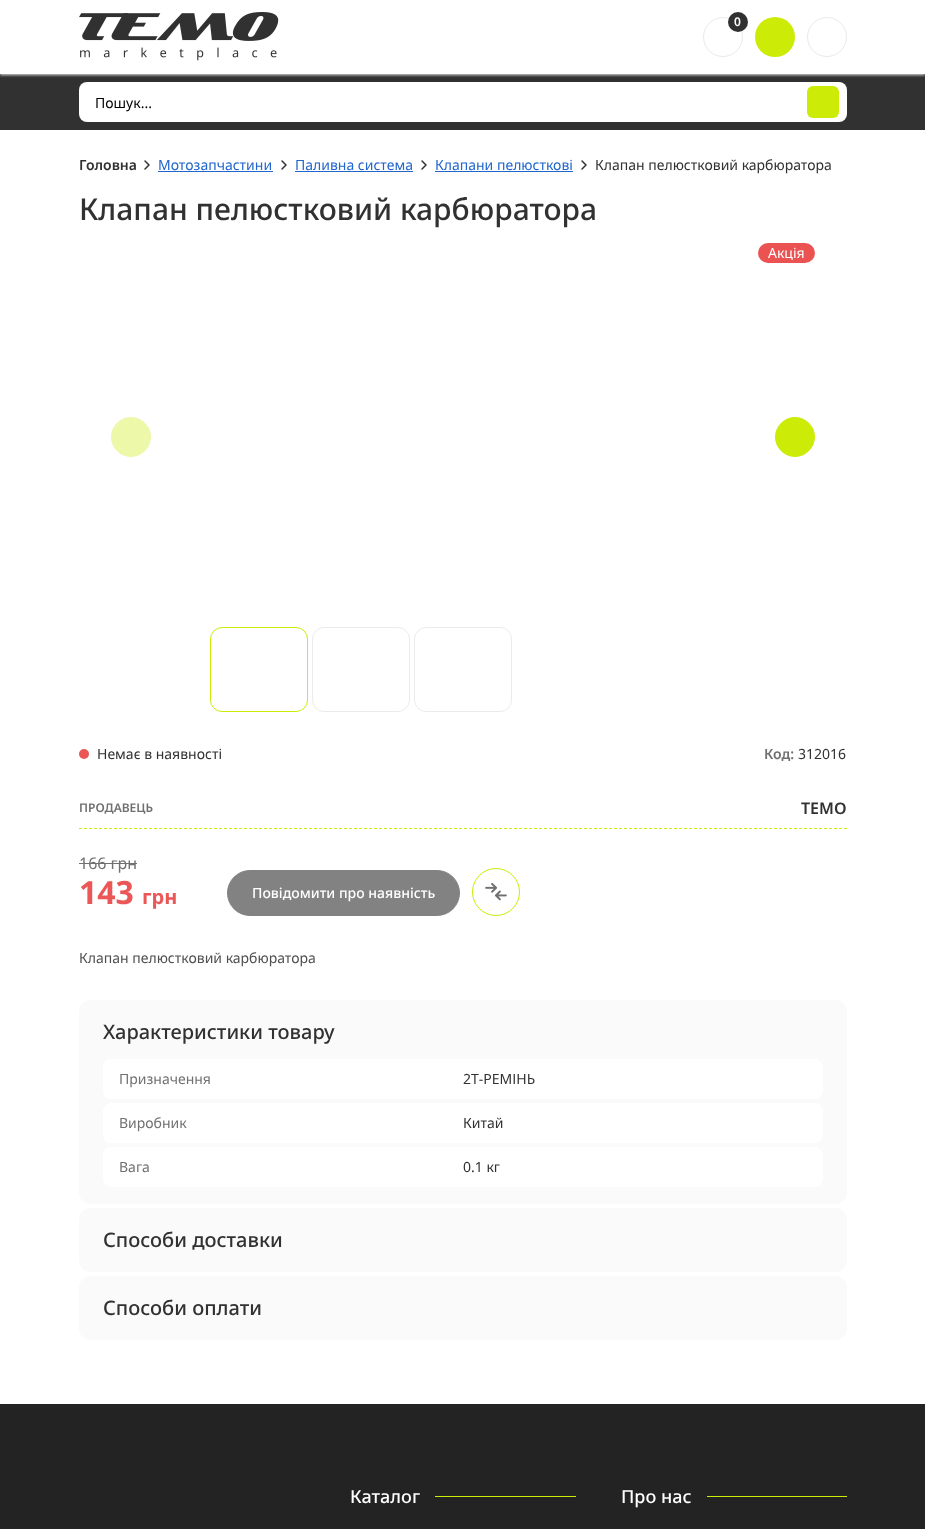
<!DOCTYPE html>
<meta charset="utf-8">
<style>body { margin: 0 } canvas { display: block }</style>
<canvas id="canvas" width="925" height="1529"></canvas>
<script type="module">
  const canvas = document.getElementById("canvas");
  const ctx = canvas.getContext("2d");
  ctx.miterLimit = 4;
  ctx.fontKerning = "normal";
  async function loadImage(src) {
    const img = new Image();
    img.src = src;
    await img.decode();
    return img;
  }

  ctx.fillStyle = "#ffffff";
  ctx.fillRect(0, 0, 925, 1529);
  ctx.fillStyle = "#313131";
  ctx.fillRect(0, 74, 925, 56);
  ctx.save();
  ctx.beginPath();
  ctx.rect(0, 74, 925, 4);
  ctx.clip();
  ctx.fillStyle = "#e4e2e2";
  ctx.filter = "blur(1.5px)";
  ctx.beginPath();
  ctx.rect(0, 1, 925, 74);
  ctx.fill();
  ctx.filter = "none";
  ctx.restore();
  ctx.drawImage(await loadImage("img1.png"), 79, 12, 200, 49);
  ctx.beginPath();
  ctx.arc(723, 37, 19.5, 0, Math.PI * 2);
  ctx.strokeStyle = "#e9e9e9";
  ctx.stroke();
  ctx.beginPath();
  ctx.arc(738, 22, 10, 0, Math.PI * 2);
  ctx.fill();
  ctx.font = "600 12px Noto Sans";
  ctx.fillStyle = "#ffffff";
  ctx.fillText("0", 734, 26);
  ctx.fillStyle = "#ccec07";
  ctx.beginPath();
  ctx.arc(775, 37, 20, 0, Math.PI * 2);
  ctx.fill();
  ctx.beginPath();
  ctx.arc(827, 37, 19.5, 0, Math.PI * 2);
  ctx.stroke();
  ctx.fillStyle = "#ffffff";
  ctx.beginPath();
  ctx.roundRect(79, 82, 768, 40, 8);
  ctx.fill();
  ctx.font = "14px Noto Sans";
  ctx.fillStyle = "#000000";
  ctx.fillText("Пошук...", 95, 108);
  ctx.fillStyle = "#ccec07";
  ctx.beginPath();
  ctx.roundRect(807, 86, 32, 32, 6);
  ctx.fill();
  ctx.font = "600 14px Noto Sans";
  ctx.fillStyle = "#313131";
  ctx.fillText("Головна", 79, 170);
  ctx.beginPath();
  ctx.moveTo(145, 161);
  ctx.lineTo(149, 165);
  ctx.lineTo(145, 169);
  ctx.strokeStyle = "#313131";
  ctx.lineWidth = 1.5;
  ctx.lineCap = "round";
  ctx.lineJoin = "round";
  ctx.stroke();
  ctx.font = "14px Noto Sans";
  ctx.fillStyle = "#2166cd";
  ctx.fillText("Мотозапчастини", 158, 170);
  ctx.fillRect(158, 171, 115, 1);
  ctx.beginPath();
  ctx.moveTo(282, 161);
  ctx.lineTo(286, 165);
  ctx.lineTo(282, 169);
  ctx.stroke();
  ctx.fillText("Паливна система", 295, 170);
  ctx.fillRect(295, 171, 118, 1);
  ctx.beginPath();
  ctx.moveTo(422, 161);
  ctx.lineTo(426, 165);
  ctx.lineTo(422, 169);
  ctx.stroke();
  ctx.fillText("Клапани пелюсткові", 435, 170);
  ctx.fillRect(435, 171, 138, 1);
  ctx.beginPath();
  ctx.moveTo(582, 161);
  ctx.lineTo(586, 165);
  ctx.lineTo(582, 169);
  ctx.stroke();
  ctx.fillStyle = "#313131";
  ctx.fillText("Клапан пелюстковий карбюратора", 595, 170);
  ctx.font = "500 30px Noto Sans";
  ctx.fillText("Клапан пелюстковий карбюратора", 79, 220);
  ctx.fillStyle = "#eb5353";
  ctx.beginPath();
  ctx.roundRect(758, 243, 57, 20, 10);
  ctx.fill();
  ctx.font = "14px Noto Sans";
  ctx.fillStyle = "#ffffff";
  ctx.fillText("Акція", 768, 258);
  ctx.fillStyle = "#edf8a8";
  ctx.beginPath();
  ctx.arc(131, 437, 19.5, 0, Math.PI * 2);
  ctx.fill();
  ctx.strokeStyle = "#edf8a8";
  ctx.lineWidth = 1;
  ctx.stroke();
  ctx.fillStyle = "#ccec07";
  ctx.beginPath();
  ctx.arc(795, 437, 19.5, 0, Math.PI * 2);
  ctx.fill();
  ctx.strokeStyle = "#ccec07";
  ctx.stroke();
  ctx.beginPath();
  ctx.roundRect(210.5, 627.5, 97, 84, 11.5);
  ctx.lineJoin = "miter";
  ctx.stroke();
  ctx.beginPath();
  ctx.roundRect(312.5, 627.5, 97, 84, 11.5);
  ctx.strokeStyle = "#ebebeb";
  ctx.stroke();
  ctx.beginPath();
  ctx.roundRect(414.5, 627.5, 97, 84, 11.5);
  ctx.stroke();
  ctx.fillStyle = "#eb5757";
  ctx.beginPath();
  ctx.arc(84, 754, 5, 0, Math.PI * 2);
  ctx.fill();
  ctx.fillStyle = "#313131";
  ctx.fillText("Немає в наявності", 97, 759);
  ctx.font = "600 14px Noto Sans";
  ctx.fillStyle = "#707070";
  ctx.fillText("Код:", 764, 759);
  ctx.font = "14px Noto Sans";
  ctx.fillStyle = "#313131";
  ctx.fillText("312016", 798, 759);
  ctx.beginPath();
  ctx.moveTo(79, 828.5);
  ctx.lineTo(847, 828.5);
  ctx.strokeStyle = "#ccec07";
  ctx.lineCap = "butt";
  ctx.setLineDash([3, 2]);
  ctx.stroke();
  ctx.font = "600 12px Noto Sans";
  ctx.fillStyle = "#707070";
  ctx.fillText("ПРОДАВЕЦЬ", 79, 812);
  ctx.font = "600 16px Noto Sans";
  ctx.fillStyle = "#313131";
  ctx.fillText("TEMO", 801, 814);
  ctx.font = "16px Noto Sans";
  ctx.fillStyle = "#707070";
  ctx.fillText("166 грн", 79, 869);
  ctx.fillRect(79, 863, 58, 1);
  ctx.font = "bold 32px Noto Sans";
  ctx.fillStyle = "#eb5757";
  ctx.fillText("143", 79, 904);
  ctx.font = "bold 20px Noto Sans";
  ctx.fillText("грн", 142, 904);
  ctx.fillStyle = "#828282";
  ctx.beginPath();
  ctx.roundRect(227.5, 870.5, 232, 45, 22.5);
  ctx.fill();
  ctx.strokeStyle = "#828282";
  ctx.setLineDash([]);
  ctx.stroke();
  ctx.font = "500 14px Noto Sans";
  ctx.fillStyle = "#ffffff";
  ctx.fillText("Повідомити про наявність", 252, 898);
  ctx.beginPath();
  ctx.arc(496, 892, 23.5, 0, Math.PI * 2);
  ctx.strokeStyle = "#ccec07";
  ctx.stroke();
  ctx.drawImage(await loadImage("img2.png"), 485, 883, 22, 18);
  ctx.font = "14px Noto Sans";
  ctx.fillStyle = "#4f4f4f";
  ctx.fillText("Клапан пелюстковий карбюратора", 79, 963);
  ctx.fillStyle = "#fafafa";
  ctx.beginPath();
  ctx.roundRect(79, 1000, 768, 204, 12);
  ctx.fill();
  ctx.font = "500 20px Noto Sans";
  ctx.fillStyle = "#313131";
  ctx.fillText("Характеристики товару", 103, 1039);
  ctx.fillStyle = "#ffffff";
  ctx.beginPath();
  ctx.roundRect(103, 1059, 720, 40, 8);
  ctx.fill();
  ctx.font = "14px Noto Sans";
  ctx.fillStyle = "#707070";
  ctx.fillText("Призначення", 119, 1084);
  ctx.fillStyle = "#313131";
  ctx.fillText("2Т-РЕМІНЬ", 463, 1084);
  ctx.fillStyle = "#ffffff";
  ctx.beginPath();
  ctx.roundRect(103, 1103, 720, 40, 8);
  ctx.fill();
  ctx.fillStyle = "#707070";
  ctx.fillText("Виробник", 119, 1128);
  ctx.fillStyle = "#313131";
  ctx.fillText("Китай", 463, 1128);
  ctx.fillStyle = "#ffffff";
  ctx.beginPath();
  ctx.roundRect(103, 1147, 720, 40, 8);
  ctx.fill();
  ctx.fillStyle = "#707070";
  ctx.fillText("Вага", 119, 1172);
  ctx.fillStyle = "#313131";
  ctx.fillText("0.1 кг", 463, 1172);
  ctx.fillStyle = "#fafafa";
  ctx.beginPath();
  ctx.roundRect(79, 1208, 768, 64, 12);
  ctx.fill();
  ctx.font = "500 20px Noto Sans";
  ctx.fillStyle = "#313131";
  ctx.fillText("Способи доставки", 103, 1247);
  ctx.fillStyle = "#fafafa";
  ctx.beginPath();
  ctx.roundRect(79, 1276, 768, 64, 12);
  ctx.fill();
  ctx.fillStyle = "#313131";
  ctx.fillText("Способи оплати", 103, 1315);
  ctx.fillStyle = "#232323";
  ctx.fillRect(0, 1404, 925, 125);
  ctx.font = "500 18px Noto Sans";
  ctx.fillStyle = "#ffffff";
  ctx.fillText("Каталог", 350, 1503);
  ctx.fillStyle = "#ccec07";
  ctx.fillRect(435, 1496, 141, 1);
  ctx.fillStyle = "#ffffff";
  ctx.fillText("Про нас", 621, 1503);
  ctx.fillStyle = "#ccec07";
  ctx.fillRect(707, 1496, 140, 1);
</script>
